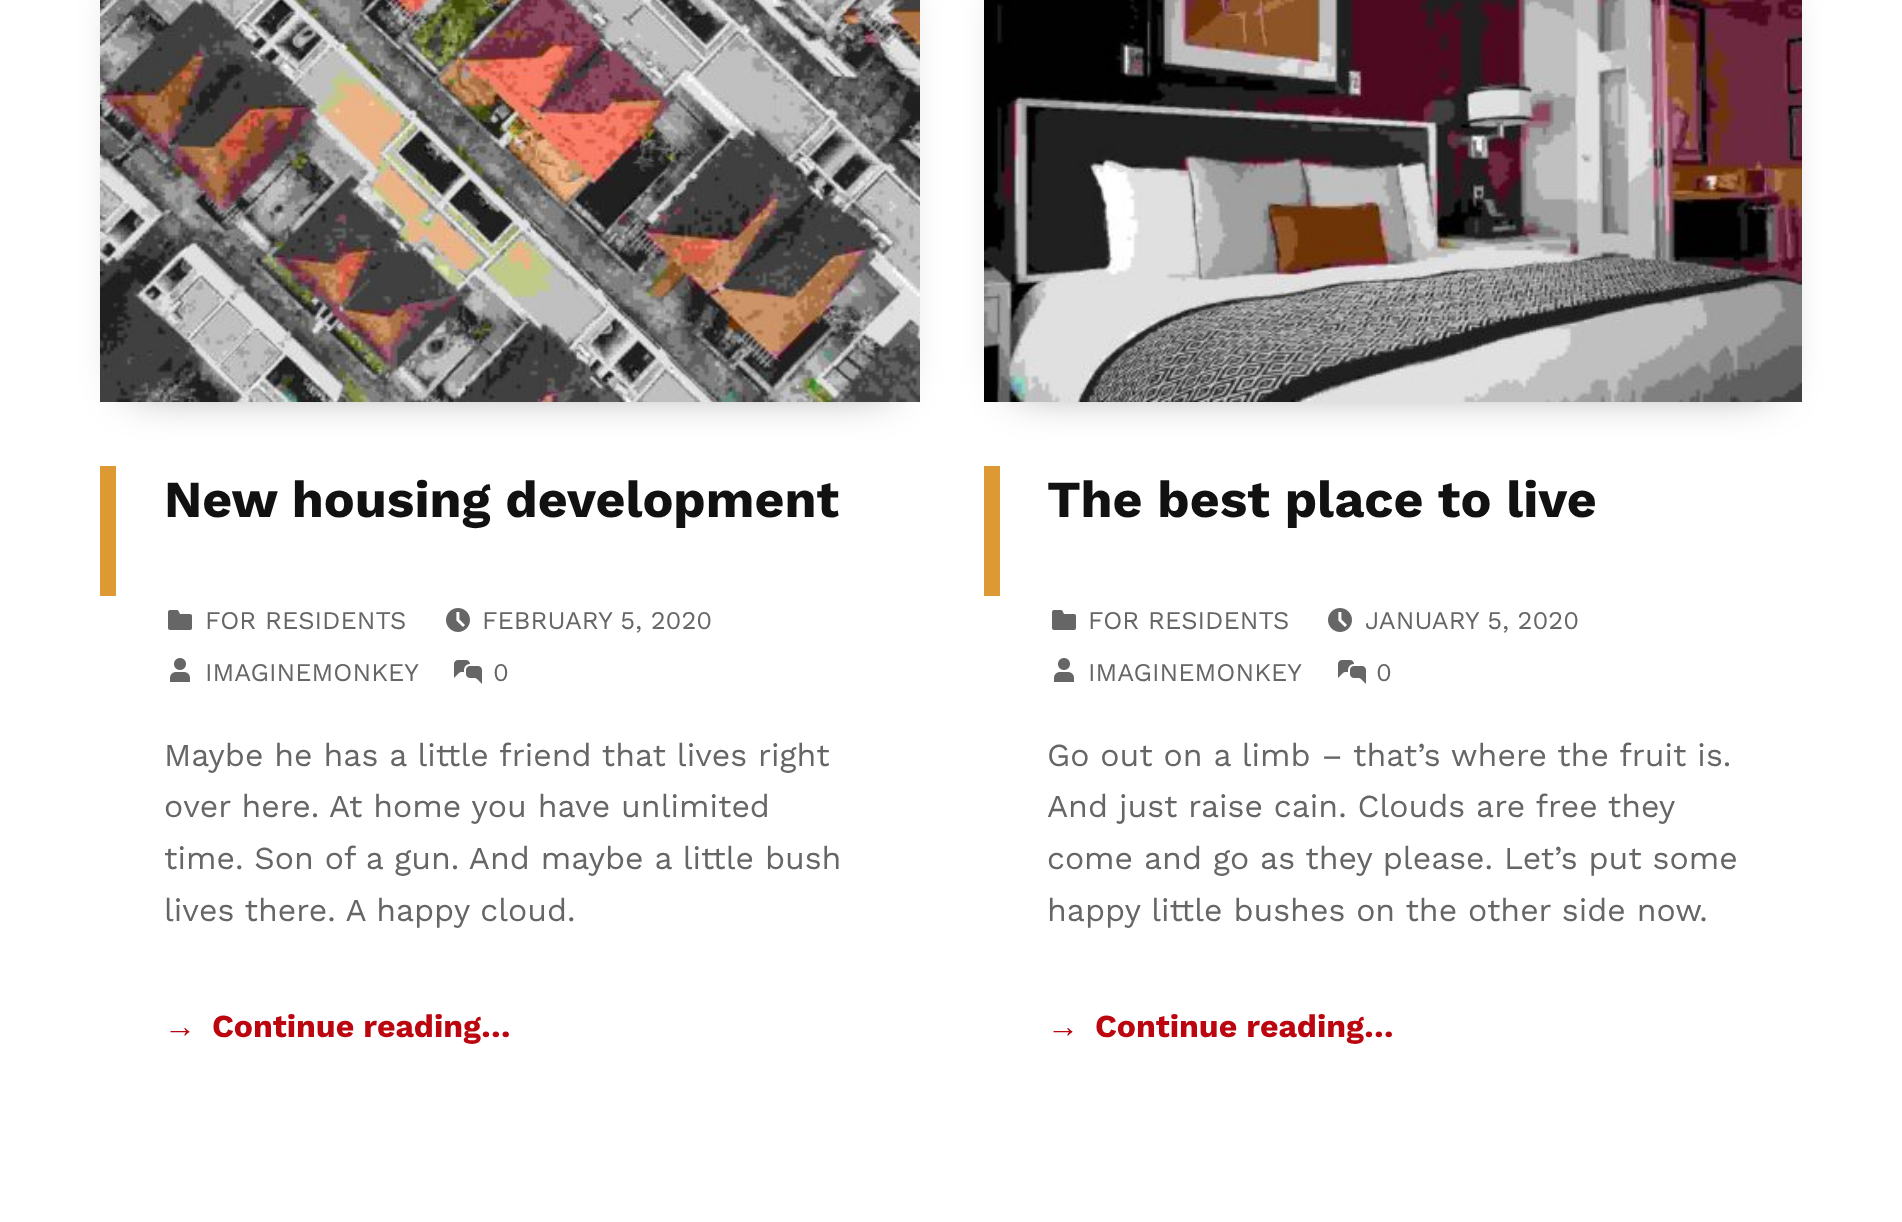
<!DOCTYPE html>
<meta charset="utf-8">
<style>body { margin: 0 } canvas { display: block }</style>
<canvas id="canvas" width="1902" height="1222"></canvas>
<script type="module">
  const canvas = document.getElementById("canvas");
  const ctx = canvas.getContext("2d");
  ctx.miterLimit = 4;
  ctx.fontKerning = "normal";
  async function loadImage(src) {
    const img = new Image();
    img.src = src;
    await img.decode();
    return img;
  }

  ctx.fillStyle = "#ffffff";
  ctx.fillRect(0, 0, 1902, 1222);
  ctx.fillStyle = "rgba(0, 0, 0, 0.5)";
  ctx.filter = "blur(24px)";
  ctx.beginPath();
  ctx.rect(132, -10, 756, 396);
  ctx.fill();
  ctx.filter = "none";
  ctx.drawImage(await loadImage("img1.png"), 100, 0, 820, 402);
  ctx.fillStyle = "#dd9933";
  ctx.fillRect(100, 466, 16, 130);
  ctx.font = "bold 51.75px Work Sans";
  ctx.fillStyle = "#111111";
  ctx.fillText("New housing development", 164, 517);
  ctx.drawImage(await loadImage("img2.png"), 168, 610, 24, 20);
  ctx.font = "25.5px Work Sans";
  ctx.fillStyle = "#666666";
  ctx.fillText("FOR RESIDENTS", 205, 629);
  ctx.drawImage(await loadImage("img3.png"), 446, 608, 24, 24);
  ctx.fillText("FEBRUARY 5, 2020", 482, 629);
  ctx.drawImage(await loadImage("img4.png"), 170, 658, 20, 24);
  ctx.fillText("IMAGINEMONKEY", 205, 681);
  ctx.drawImage(await loadImage("img5.png"), 454, 660, 28, 24);
  ctx.fillText("0", 493, 681);
  ctx.font = "32px Work Sans";
  ctx.fillText("Maybe he has a little friend that lives right", 164, 766);
  ctx.fillText("over here. At home you have unlimited", 164, 817);
  ctx.fillText("time. Son of a gun. And maybe a little bush", 164, 869);
  ctx.fillText("lives there. A happy cloud.", 164, 921);
  ctx.font = "bold 32px Liberation Sans";
  ctx.fillStyle = "#bb060f";
  ctx.fillText("→", 164, 1037);
  ctx.font = "bold 32px Work Sans";
  ctx.fillText("Continue reading…", 212, 1037);
  ctx.fillStyle = "rgba(0, 0, 0, 0.5)";
  ctx.filter = "blur(24px)";
  ctx.beginPath();
  ctx.rect(1016, -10, 754, 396);
  ctx.fill();
  ctx.filter = "none";
  ctx.drawImage(await loadImage("img6.png"), 984, 0, 818, 402);
  ctx.fillStyle = "#dd9933";
  ctx.fillRect(984, 466, 16, 130);
  ctx.font = "bold 51.75px Work Sans";
  ctx.fillStyle = "#111111";
  ctx.fillText("The best place to live", 1047, 517);
  ctx.drawImage(await loadImage("img2.png"), 1052, 610, 24, 20);
  ctx.font = "25.5px Work Sans";
  ctx.fillStyle = "#666666";
  ctx.fillText("FOR RESIDENTS", 1088, 629);
  ctx.drawImage(await loadImage("img3.png"), 1328, 608, 24, 24);
  ctx.fillText("JANUARY 5, 2020", 1365, 629);
  ctx.drawImage(await loadImage("img4.png"), 1054, 658, 20, 24);
  ctx.fillText("IMAGINEMONKEY", 1088, 681);
  ctx.drawImage(await loadImage("img5.png"), 1338, 660, 28, 24);
  ctx.fillText("0", 1376, 681);
  ctx.font = "32px Work Sans";
  ctx.fillText("Go out on a limb – that’s where the fruit is.", 1047, 766);
  ctx.fillText("And just raise cain. Clouds are free they", 1047, 817);
  ctx.fillText("come and go as they please. Let’s put some", 1047, 869);
  ctx.fillText("happy little bushes on the other side now.", 1047, 921);
  ctx.font = "bold 32px Liberation Sans";
  ctx.fillStyle = "#bb060f";
  ctx.fillText("→", 1047, 1037);
  ctx.font = "bold 32px Work Sans";
  ctx.fillText("Continue reading…", 1095, 1037);
</script>
